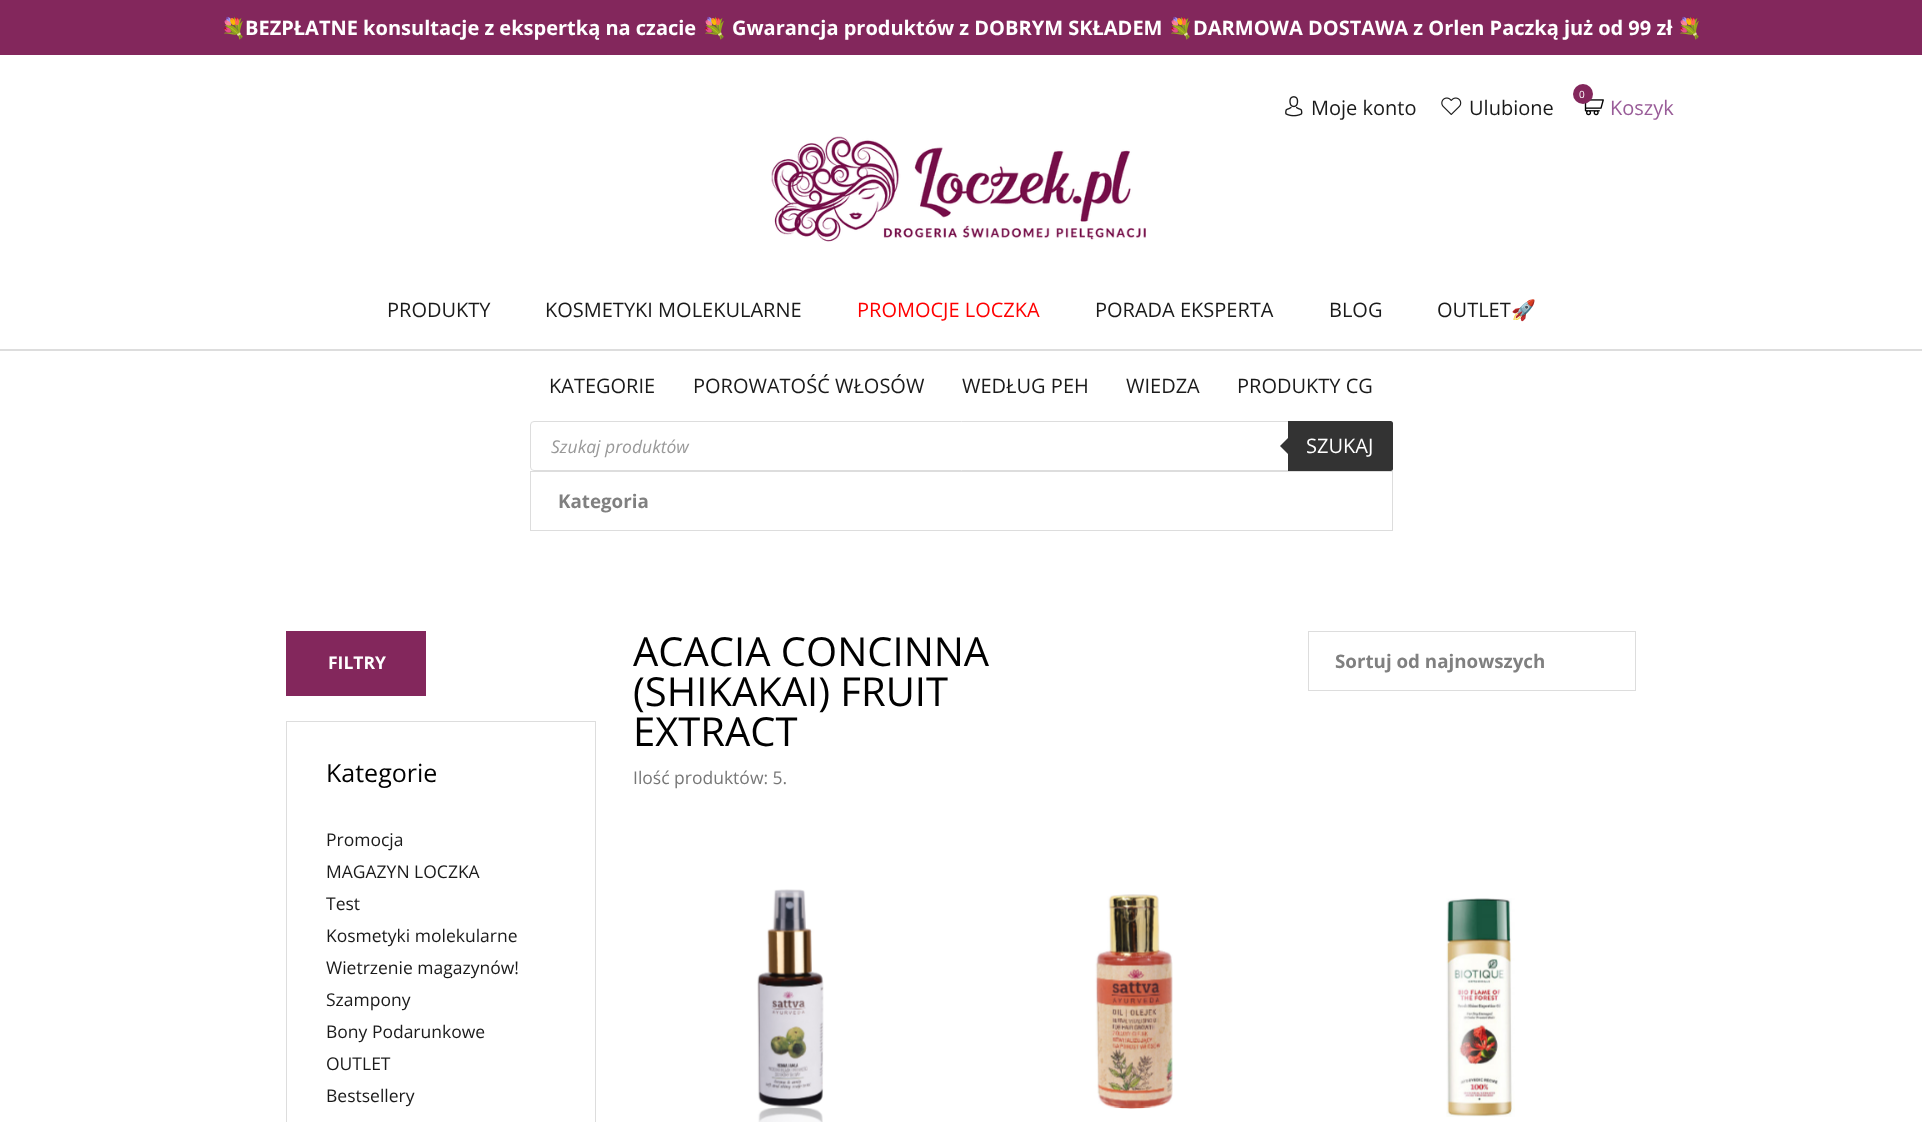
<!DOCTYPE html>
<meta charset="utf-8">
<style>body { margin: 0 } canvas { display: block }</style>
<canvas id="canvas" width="1922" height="1122"></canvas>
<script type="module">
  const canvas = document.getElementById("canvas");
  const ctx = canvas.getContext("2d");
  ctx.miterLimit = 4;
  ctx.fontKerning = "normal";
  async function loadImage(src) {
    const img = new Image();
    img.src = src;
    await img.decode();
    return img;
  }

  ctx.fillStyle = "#ffffff";
  ctx.fillRect(0, 0, 1922, 1122);
  ctx.fillStyle = "#83275c";
  ctx.fillRect(0, 0, 1922, 55);
  ctx.font = "bold 20px Noto Color Emoji";
  ctx.fillStyle = "#ffffff";
  ctx.fillText("💐", 221, 35);
  ctx.font = "bold 20px Open Sans";
  ctx.fillText("BEZPŁATNE konsultacje z ekspertką na czacie", 245, 35);
  ctx.font = "bold 20px Noto Color Emoji";
  ctx.fillText("💐", 702, 35);
  ctx.font = "bold 20px Open Sans";
  ctx.fillText("Gwarancja produktów z DOBRYM SKŁADEM", 732, 35);
  ctx.font = "bold 20px Noto Color Emoji";
  ctx.fillText("💐", 1168, 35);
  ctx.font = "bold 20px Open Sans";
  ctx.fillText("DARMOWA DOSTAWA z Orlen Paczką już od 99 zł", 1193, 35);
  ctx.font = "bold 20px Noto Color Emoji";
  ctx.fillText("💐", 1677, 35);
  ctx.drawImage(await loadImage("img1.png"), 1285, 96, 18, 21);
  ctx.font = "20px Open Sans";
  ctx.fillStyle = "#1a1a1a";
  ctx.fillText("Moje konto", 1311, 115);
  ctx.drawImage(await loadImage("img2.png"), 1441, 97, 21, 18);
  ctx.fillText("Ulubione", 1469, 115);
  ctx.drawImage(await loadImage("img3.png"), 1584, 99, 20, 17);
  ctx.fillStyle = "#83275c";
  ctx.beginPath();
  ctx.arc(1583, 94, 10, 0, Math.PI * 2);
  ctx.fill();
  ctx.font = "10px Open Sans";
  ctx.fillStyle = "#ffffff";
  ctx.fillText("0", 1579, 98);
  ctx.font = "20px Open Sans";
  ctx.fillStyle = "#995c98";
  ctx.fillText("Koszyk", 1610, 115);
  ctx.drawImage(await loadImage("img4.png"), 771, 136, 375, 106);
  ctx.fillStyle = "#dddddd";
  ctx.fillRect(0, 349, 1922, 2);
  ctx.fillStyle = "#1a1a1a";
  ctx.fillText("PRODUKTY", 387, 317);
  ctx.fillText("KOSMETYKI MOLEKULARNE", 545, 317);
  ctx.fillStyle = "#ff0000";
  ctx.fillText("PROMOCJE LOCZKA", 857, 317);
  ctx.fillStyle = "#1a1a1a";
  ctx.fillText("PORADA EKSPERTA", 1095, 317);
  ctx.fillText("BLOG", 1329, 317);
  ctx.fillText("OUTLET", 1437, 317);
  ctx.font = "20px Noto Color Emoji";
  ctx.fillText("🚀", 1511, 317);
  ctx.font = "20px Open Sans";
  ctx.fillText("KATEGORIE", 549, 393);
  ctx.fillText("POROWATOŚĆ WŁOSÓW", 693, 393);
  ctx.fillText("WEDŁUG PEH", 962, 393);
  ctx.fillText("WIEDZA", 1126, 393);
  ctx.fillText("PRODUKTY CG", 1237, 393);
  ctx.beginPath();
  ctx.roundRect(530.5, 421.5, 862, 49, 3.5);
  ctx.strokeStyle = "#dddddd";
  ctx.stroke();
  ctx.font = "italic 17.5px Open Sans";
  ctx.fillStyle = "#999999";
  ctx.fillText("Szukaj produktów", 551, 453);
  ctx.fillStyle = "#333333";
  ctx.beginPath();
  ctx.roundRect(1288, 421, 105, 50, [0, 2.5, 2.5, 0]);
  ctx.fill();
  ctx.beginPath();
  ctx.moveTo(1290, 436);
  ctx.lineTo(1290, 456);
  ctx.lineTo(1280, 446);
  ctx.closePath();
  ctx.fill();
  ctx.font = "20px Open Sans";
  ctx.fillStyle = "#ffffff";
  ctx.fillText("SZUKAJ", 1306, 453);
  ctx.strokeRect(530.5, 471.5, 862, 59);
  ctx.font = "bold 18.75px Open Sans";
  ctx.fillStyle = "#808080";
  ctx.fillText("Kategoria", 558, 508);
  ctx.fillStyle = "#83275c";
  ctx.fillRect(286, 631, 140, 65);
  ctx.font = "bold 17.5px Open Sans";
  ctx.fillStyle = "#ffffff";
  ctx.fillText("FILTRY", 328, 669);
  ctx.strokeRect(286.5, 721.5, 309, 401);
  ctx.font = "25px Open Sans";
  ctx.fillStyle = "#000000";
  ctx.fillText("Kategorie", 326, 782);
  ctx.font = "17.5px Open Sans";
  ctx.fillStyle = "#1a1a1a";
  ctx.fillText("Promocja", 326, 846);
  ctx.fillText("MAGAZYN LOCZKA", 326, 878);
  ctx.fillText("Test", 326, 910);
  ctx.fillText("Kosmetyki molekularne", 326, 942);
  ctx.fillText("Wietrzenie magazynów!", 326, 974);
  ctx.fillText("Szampony", 326, 1006);
  ctx.fillText("Bony Podarunkowe", 326, 1038);
  ctx.fillText("OUTLET", 326, 1070);
  ctx.fillText("Bestsellery", 326, 1102);
  ctx.font = "40px Open Sans";
  ctx.fillStyle = "#000000";
  ctx.fillText("ACACIA CONCINNA", 633, 666);
  ctx.fillText("(SHIKAKAI) FRUIT", 633, 706);
  ctx.fillText("EXTRACT", 633, 746);
  ctx.font = "17.5px Open Sans";
  ctx.fillStyle = "#777777";
  ctx.fillText("Ilość produktów: 5.", 633, 784);
  ctx.strokeRect(1308.5, 631.5, 327, 59);
  ctx.font = "bold 18.75px Open Sans";
  ctx.fillStyle = "#808080";
  ctx.fillText("Sortuj od najnowszych", 1335, 668);
  ctx.drawImage(await loadImage("img5.png"), 757, 889, 67, 233);
  ctx.drawImage(await loadImage("img6.png"), 1095, 894, 78, 215);
  ctx.drawImage(await loadImage("img7.png"), 1446, 898, 69, 219);
</script>
